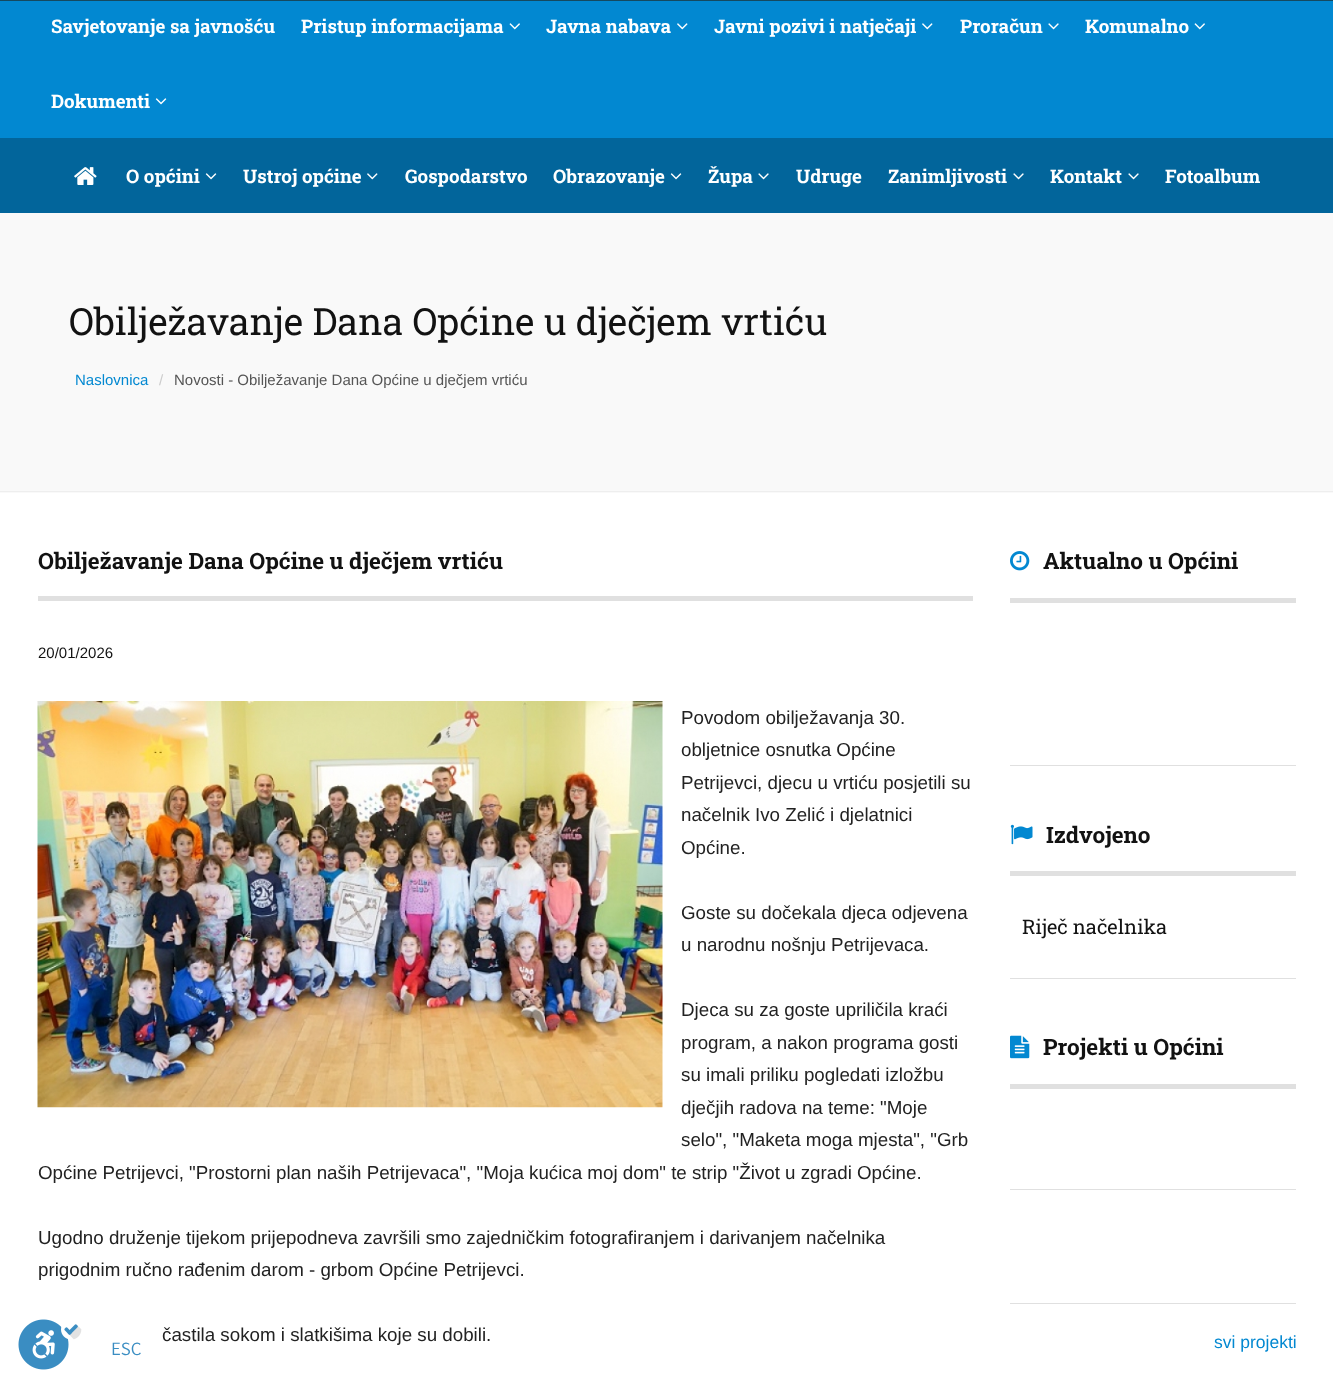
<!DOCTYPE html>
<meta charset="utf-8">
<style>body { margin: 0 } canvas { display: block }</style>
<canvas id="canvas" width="1333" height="1388"></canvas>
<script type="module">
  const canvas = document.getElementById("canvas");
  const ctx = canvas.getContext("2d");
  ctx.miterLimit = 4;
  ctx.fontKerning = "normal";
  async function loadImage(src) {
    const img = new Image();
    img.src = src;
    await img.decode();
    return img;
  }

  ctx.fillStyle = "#ffffff";
  ctx.fillRect(0, 0, 1333, 1388);
  ctx.fillStyle = "#0288d1";
  ctx.fillRect(0, 1, 1333, 137);
  ctx.font = "bold 18.75px Roboto Slab";
  ctx.fillStyle = "#ffffff";
  ctx.fillText("Savjetovanje sa javnošću", 51, 33);
  ctx.fillText("Pristup informacijama", 301, 33);
  ctx.drawImage(await loadImage("img1.png"), 509, 23, 11, 7);
  ctx.fillText("Javna nabava", 546, 33);
  ctx.drawImage(await loadImage("img2.png"), 677, 23, 11, 7);
  ctx.fillText("Javni pozivi i natječaji", 714, 33);
  ctx.drawImage(await loadImage("img2.png"), 922, 23, 11, 7);
  ctx.fillText("Proračun", 960, 33);
  ctx.drawImage(await loadImage("img3.png"), 1048, 23, 11, 7);
  ctx.fillText("Komunalno", 1085, 33);
  ctx.drawImage(await loadImage("img1.png"), 1194, 23, 11, 7);
  ctx.fillText("Dokumenti", 51, 108);
  ctx.drawImage(await loadImage("img4.png"), 155, 98, 12, 7);
  ctx.fillStyle = "#02659b";
  ctx.fillRect(0, 138, 1333, 75);
  ctx.drawImage(await loadImage("img5.png"), 74, 167, 23, 18);
  ctx.fillStyle = "#ffffff";
  ctx.fillText("O općini", 126, 183);
  ctx.drawImage(await loadImage("img6.png"), 205, 173, 12, 7);
  ctx.fillText("Ustroj općine", 243, 183);
  ctx.drawImage(await loadImage("img7.png"), 367, 173, 11, 7);
  ctx.fillText("Gospodarstvo", 405, 183);
  ctx.fillText("Obrazovanje", 553, 183);
  ctx.drawImage(await loadImage("img6.png"), 670, 173, 12, 7);
  ctx.fillText("Župa", 708, 183);
  ctx.drawImage(await loadImage("img8.png"), 758, 173, 11, 7);
  ctx.fillText("Udruge", 796, 183);
  ctx.fillText("Zanimljivosti", 888, 183);
  ctx.drawImage(await loadImage("img8.png"), 1013, 173, 11, 7);
  ctx.fillText("Kontakt", 1050, 183);
  ctx.drawImage(await loadImage("img8.png"), 1128, 173, 11, 7);
  ctx.fillText("Fotoalbum", 1165, 183);
  ctx.fillStyle = "#f9f9f9";
  ctx.fillRect(0, 213, 1333, 280);
  ctx.fillStyle = "#eeeeee";
  ctx.fillRect(0, 491, 1333, 1);
  ctx.font = "37.5px Roboto Slab";
  ctx.fillStyle = "#121212";
  ctx.fillText("Obilježavanje Dana Općine u dječjem vrtiću", 69, 335);
  ctx.font = "15px Liberation Sans";
  ctx.fillStyle = "#0288d1";
  ctx.fillText("Naslovnica", 75, 385);
  ctx.fillStyle = "#cccccc";
  ctx.fillText("/", 159, 385);
  ctx.fillStyle = "#555555";
  ctx.fillText("Novosti - Obilježavanje Dana Općine u dječjem vrtiću", 174, 385);
  ctx.font = "bold 22.5px Roboto Slab";
  ctx.fillStyle = "#121212";
  ctx.fillText("Obilježavanje Dana Općine u dječjem vrtiću", 38, 569);
  ctx.fillStyle = "#e0e0e0";
  ctx.fillRect(38, 596, 935, 5);
  ctx.font = "15px Liberation Sans";
  ctx.fillStyle = "#121212";
  ctx.fillText("20/01/2026", 38, 658);
  ctx.drawImage(await loadImage("img9.png"), 37, 701, 626, 407);
  ctx.font = "18.75px Liberation Sans";
  ctx.fillStyle = "#222222";
  ctx.fillText("Povodom obilježavanja 30.", 681, 724);
  ctx.fillText("obljetnice osnutka Općine", 681, 756);
  ctx.fillText("Petrijevci, djecu u vrtiću posjetili su", 681, 789);
  ctx.fillText("načelnik Ivo Zelić i djelatnici", 681, 821);
  ctx.fillText("Općine.", 681, 854);
  ctx.fillText("Goste su dočekala djeca odjevena", 681, 919);
  ctx.fillText("u narodnu nošnju Petrijevaca.", 681, 951);
  ctx.fillText("Djeca su za goste upriličila kraći", 681, 1016);
  ctx.fillText("program, a nakon programa gosti", 681, 1049);
  ctx.fillText("su imali priliku pogledati izložbu", 681, 1081);
  ctx.fillText("dječjih radova na teme: \"Moje", 681, 1114);
  ctx.fillText("selo\", \"Maketa moga mjesta\", \"Grb", 681, 1146);
  ctx.fillText("Općine Petrijevci, \"Prostorni plan naših Petrijevaca\", \"Moja kućica moj dom\" te strip \"Život u zgradi Općine.", 38, 1179);
  ctx.fillText("Ugodno druženje tijekom prijepodneva završili smo zajedničkim fotografiranjem i darivanjem načelnika", 38, 1244);
  ctx.fillText("prigodnim ručno rađenim darom - grbom Općine Petrijevci.", 38, 1276);
  ctx.fillText("častila sokom i slatkišima koje su dobili.", 162, 1341);
  ctx.drawImage(await loadImage("img10.png"), 1010, 551, 20, 20);
  ctx.font = "bold 22.5px Roboto Slab";
  ctx.fillStyle = "#121212";
  ctx.fillText("Aktualno u Općini", 1043, 569);
  ctx.fillStyle = "#e0e0e0";
  ctx.fillRect(1010, 598, 286, 5);
  ctx.fillRect(1010, 765, 286, 1);
  ctx.drawImage(await loadImage("img11.png"), 1010, 824, 23, 21);
  ctx.fillStyle = "#121212";
  ctx.fillText("Izdvojeno", 1046, 843);
  ctx.fillStyle = "#e0e0e0";
  ctx.fillRect(1010, 871, 286, 5);
  ctx.font = "20px Roboto Slab";
  ctx.fillStyle = "#121212";
  ctx.fillText("Riječ načelnika", 1022, 934);
  ctx.fillStyle = "#e0e0e0";
  ctx.fillRect(1010, 978, 286, 1);
  ctx.drawImage(await loadImage("img12.png"), 1010, 1035, 20, 24);
  ctx.font = "bold 22.5px Roboto Slab";
  ctx.fillStyle = "#121212";
  ctx.fillText("Projekti u Općini", 1043, 1055);
  ctx.fillStyle = "#e0e0e0";
  ctx.fillRect(1010, 1084, 286, 5);
  ctx.fillRect(1010, 1189, 286, 1);
  ctx.fillRect(1010, 1303, 286, 1);
  ctx.font = "17.5px Liberation Sans";
  ctx.fillStyle = "#0288d1";
  ctx.fillText("svi projekti", 1214, 1348);
  ctx.fillStyle = "#15495f";
  ctx.fillRect(0, 0, 1333, 1);
  ctx.drawImage(await loadImage("img13.png"), 18, 1319, 64, 51);
  ctx.fillStyle = "#ffffff";
  ctx.beginPath();
  ctx.roundRect(88, 1338, 78, 26, 8);
  ctx.fill();
  ctx.font = "18.75px Assistant";
  ctx.fillStyle = "#3a8dc2";
  ctx.fillText("ESC", 111, 1355);
</script>
